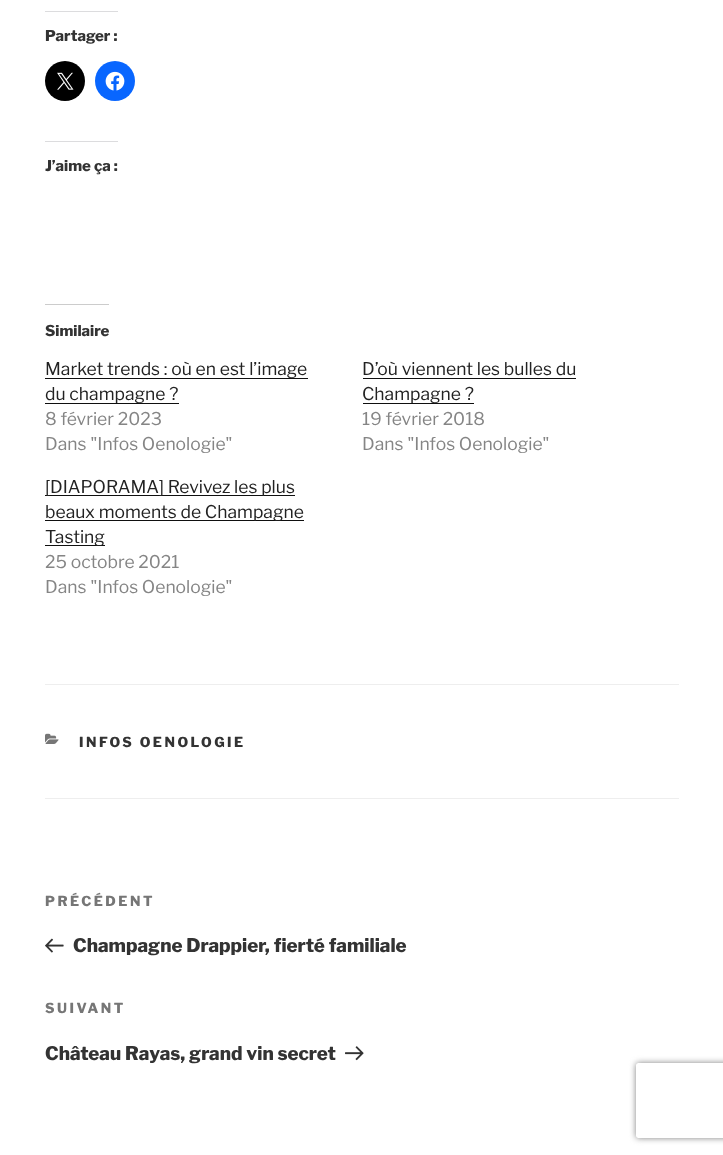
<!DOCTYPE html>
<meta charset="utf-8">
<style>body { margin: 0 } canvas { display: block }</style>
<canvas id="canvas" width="723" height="1155"></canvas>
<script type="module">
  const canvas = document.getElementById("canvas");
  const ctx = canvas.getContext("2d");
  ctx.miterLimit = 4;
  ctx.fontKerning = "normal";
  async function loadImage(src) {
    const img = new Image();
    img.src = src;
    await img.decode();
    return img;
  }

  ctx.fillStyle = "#ffffff";
  ctx.fillRect(0, 0, 723, 1155);
  ctx.fillStyle = "#dcdcde";
  ctx.fillRect(45, 11, 73, 1);
  ctx.font = "100 15px Libre Franklin";
  ctx.fillStyle = "#333333";
  ctx.fillText("Partager :", 45, 41);
  ctx.fillStyle = "#000000";
  ctx.beginPath();
  ctx.arc(65, 81, 20, 0, Math.PI * 2);
  ctx.fill();
  ctx.drawImage(await loadImage("img1.png"), 57, 72, 17, 18);
  ctx.fillStyle = "#0866ff";
  ctx.beginPath();
  ctx.arc(115, 81, 20, 0, Math.PI * 2);
  ctx.fill();
  ctx.drawImage(await loadImage("img2.png"), 105, 71, 20, 20);
  ctx.fillStyle = "#dcdcde";
  ctx.fillRect(45, 141, 73, 1);
  ctx.fillStyle = "#333333";
  ctx.fillText("J’aime ça :", 45, 171);
  ctx.fillStyle = "#cccccc";
  ctx.fillRect(45, 304, 64, 1);
  ctx.fillStyle = "#333333";
  ctx.fillText("Similaire", 45, 336);
  ctx.fillStyle = "#0f0f0f";
  ctx.fillRect(45, 378, 263, 1);
  ctx.font = "100 17.5px 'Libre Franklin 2'";
  ctx.fillStyle = "#222222";
  ctx.fillText("Market trends : où en est l’image", 45, 375);
  ctx.fillStyle = "#0f0f0f";
  ctx.fillRect(45, 403, 134, 1);
  ctx.fillStyle = "#222222";
  ctx.fillText("du champagne ?", 45, 400);
  ctx.fillStyle = "#858585";
  ctx.fillText("8 février 2023", 45, 425);
  ctx.fillText("Dans \"Infos Oenologie\"", 45, 450);
  ctx.fillStyle = "#222222";
  ctx.fillText("D’où viennent les bulles du", 362, 375);
  ctx.fillStyle = "#0f0f0f";
  ctx.fillRect(363, 378, 213, 1);
  ctx.fillRect(363, 403, 111, 1);
  ctx.fillStyle = "#222222";
  ctx.fillText("Champagne ?", 362, 400);
  ctx.fillStyle = "#858585";
  ctx.fillText("19 février 2018", 362, 425);
  ctx.fillText("Dans \"Infos Oenologie\"", 362, 450);
  ctx.fillStyle = "#0f0f0f";
  ctx.fillRect(45, 495, 250, 1);
  ctx.fillStyle = "#222222";
  ctx.fillText("[DIAPORAMA] Revivez les plus", 45, 493);
  ctx.fillStyle = "#0f0f0f";
  ctx.fillRect(45, 520, 259, 1);
  ctx.fillStyle = "#222222";
  ctx.fillText("beaux moments de Champagne", 45, 518);
  ctx.fillStyle = "#0f0f0f";
  ctx.fillRect(45, 545, 60, 1);
  ctx.fillStyle = "#222222";
  ctx.fillText("Tasting", 45, 543);
  ctx.fillStyle = "#858585";
  ctx.fillText("25 octobre 2021", 45, 568);
  ctx.fillText("Dans \"Infos Oenologie\"", 45, 593);
  ctx.fillStyle = "#eeeeee";
  ctx.fillRect(45, 684, 634, 1);
  ctx.fillRect(45, 798, 634, 1);
  ctx.drawImage(await loadImage("img3.png"), 45, 733, 14, 11);
  ctx.letterSpacing = "2.5px";
  ctx.font = "100 13.75px Libre Franklin";
  ctx.fillStyle = "#333333";
  ctx.fillText("INFOS OENOLOGIE", 79, 747);
  ctx.fillStyle = "#767676";
  ctx.fillText("PRÉCÉDENT", 45, 906);
  ctx.drawImage(await loadImage("img4.png"), 45, 938, 19, 15);
  ctx.letterSpacing = "0px";
  ctx.font = "100 18.75px Libre Franklin";
  ctx.fillStyle = "#333333";
  ctx.fillText("Champagne Drappier, fierté familiale", 73, 952);
  ctx.letterSpacing = "2.5px";
  ctx.font = "100 13.75px Libre Franklin";
  ctx.fillStyle = "#767676";
  ctx.fillText("SUIVANT", 45, 1013);
  ctx.letterSpacing = "0px";
  ctx.font = "100 18.75px Libre Franklin";
  ctx.fillStyle = "#333333";
  ctx.fillText("Château Rayas, grand vin secret", 45, 1060);
  ctx.drawImage(await loadImage("img5.png"), 345, 1046, 19, 15);
  ctx.save();
  ctx.beginPath();
  ctx.moveTo(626, 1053);
  ctx.lineTo(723, 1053);
  ctx.lineTo(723, 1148);
  ctx.lineTo(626, 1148);
  ctx.closePath();
  ctx.moveTo(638.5, 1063);
  ctx.lineTo(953.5, 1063);
  ctx.bezierCurveTo(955, 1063, 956, 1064, 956, 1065.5);
  ctx.lineTo(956, 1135.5);
  ctx.bezierCurveTo(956, 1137, 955, 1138, 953.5, 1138);
  ctx.lineTo(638.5, 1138);
  ctx.bezierCurveTo(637, 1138, 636, 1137, 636, 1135.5);
  ctx.lineTo(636, 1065.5);
  ctx.bezierCurveTo(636, 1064, 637, 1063, 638.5, 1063);
  ctx.closePath();
  ctx.clip("evenodd");
  ctx.fillStyle = "#808080";
  ctx.filter = "blur(3px)";
  ctx.beginPath();
  ctx.roundRect(636, 1063, 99, 75, 2.5);
  ctx.fill();
  ctx.filter = "none";
  ctx.restore();
</script>
